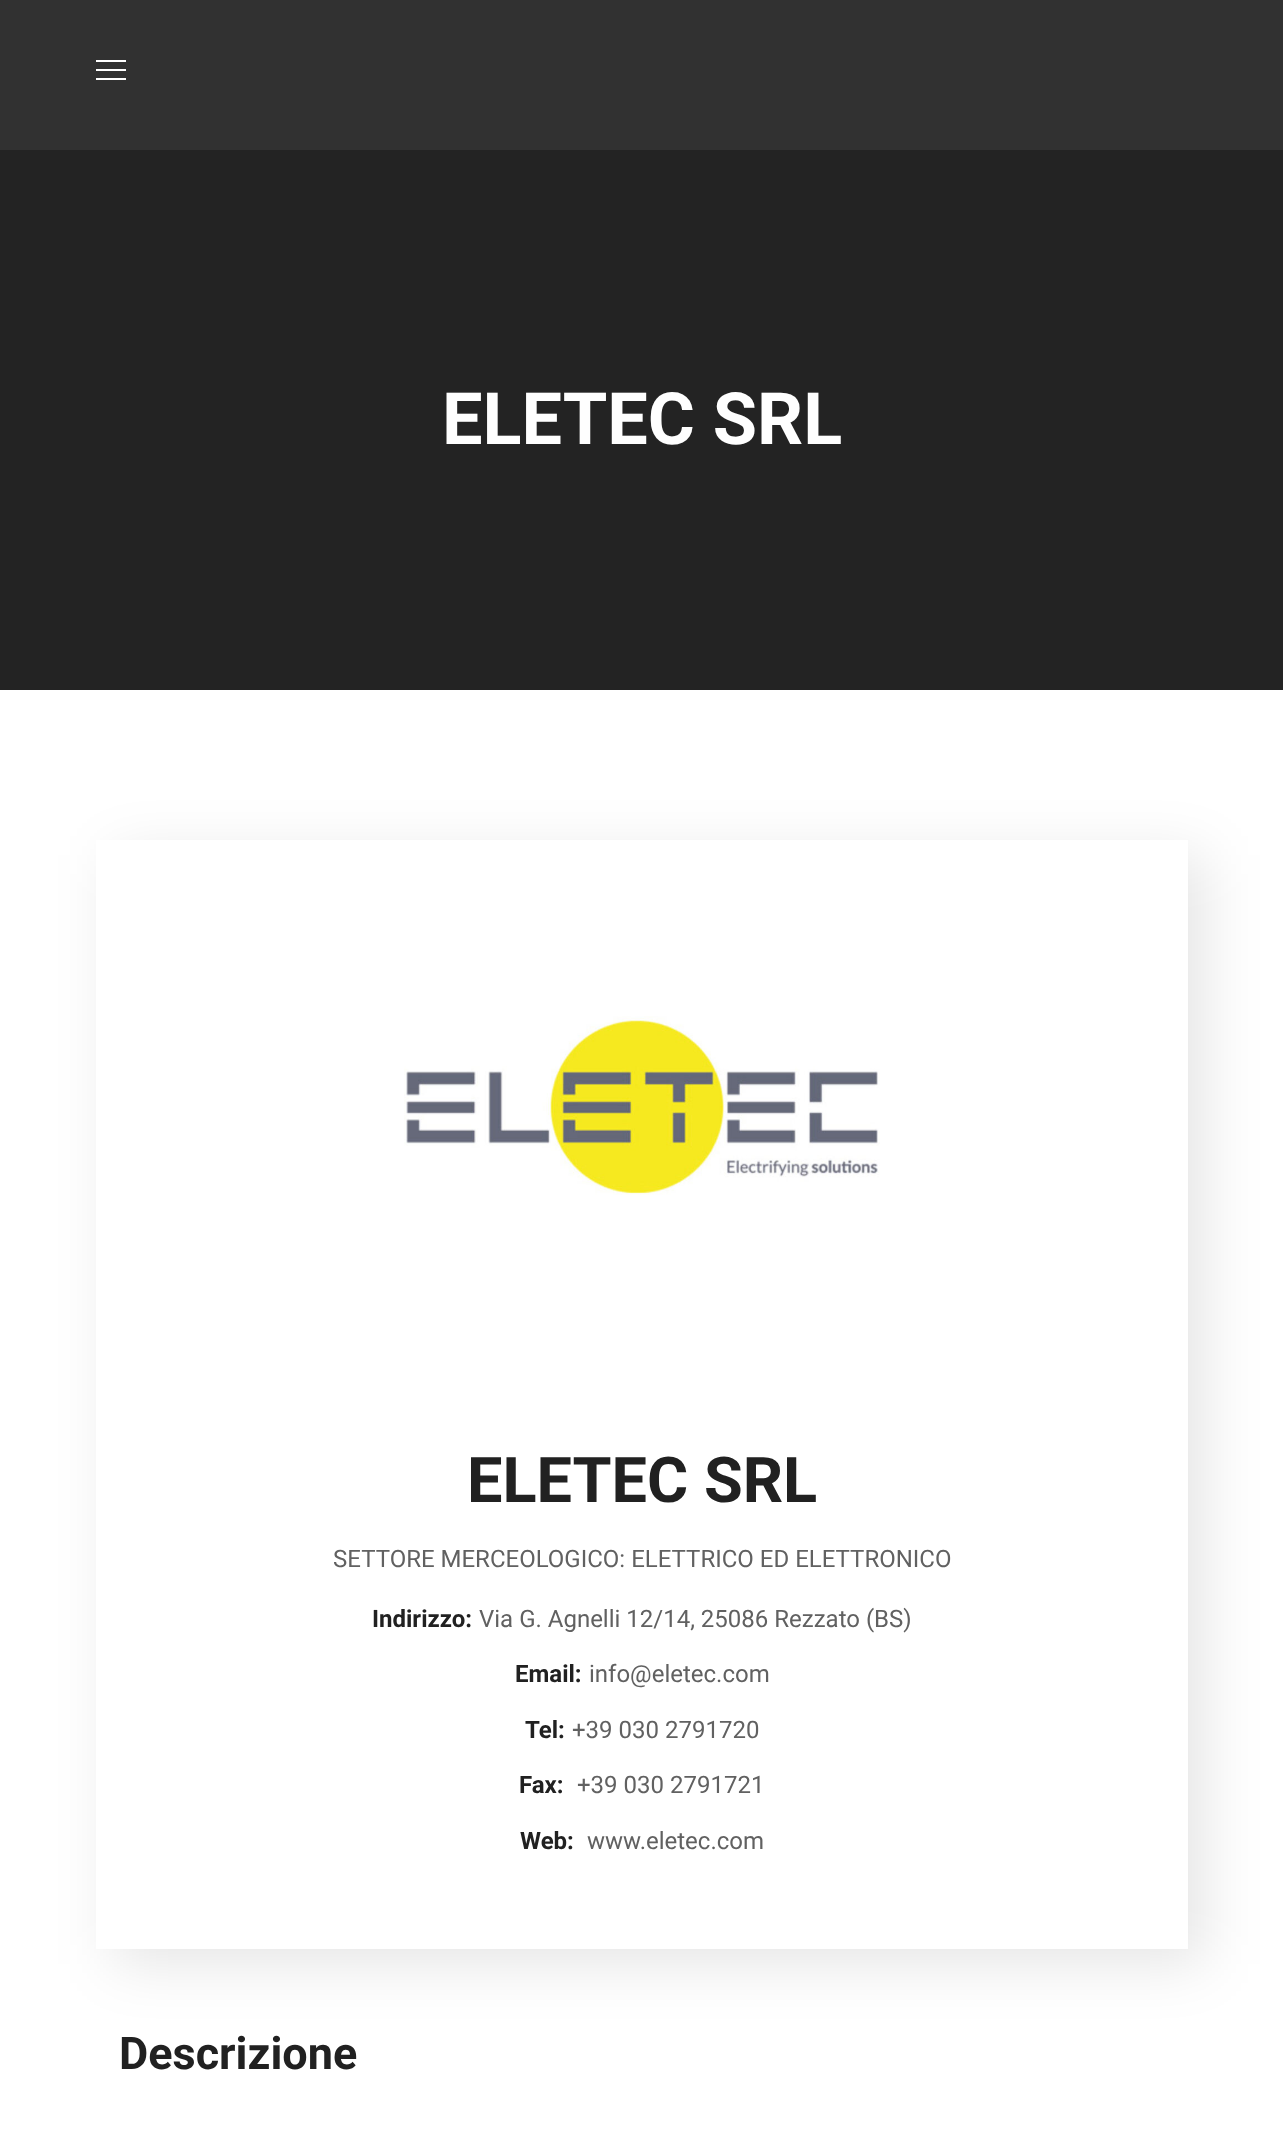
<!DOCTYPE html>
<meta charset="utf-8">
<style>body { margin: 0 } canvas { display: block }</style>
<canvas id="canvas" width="1283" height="2139"></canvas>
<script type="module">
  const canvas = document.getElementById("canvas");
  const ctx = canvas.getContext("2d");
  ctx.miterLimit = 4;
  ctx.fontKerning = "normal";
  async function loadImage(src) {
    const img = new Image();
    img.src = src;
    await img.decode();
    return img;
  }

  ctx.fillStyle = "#ffffff";
  ctx.fillRect(0, 0, 1283, 2139);
  ctx.fillStyle = "#313131";
  ctx.fillRect(0, 0, 1283, 150);
  ctx.fillStyle = "#ffffff";
  ctx.fillRect(96, 60, 30, 2);
  ctx.fillRect(96, 69, 30, 2);
  ctx.fillRect(96, 78, 30, 2);
  ctx.fillStyle = "#232323";
  ctx.fillRect(0, 150, 1283, 540);
  ctx.font = "bold 72px Roboto";
  ctx.fillStyle = "#fefefe";
  ctx.fillText("ELETEC SRL", 442, 444);
  ctx.save();
  ctx.beginPath();
  ctx.moveTo(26, 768);
  ctx.lineTo(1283, 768);
  ctx.lineTo(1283, 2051);
  ctx.lineTo(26, 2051);
  ctx.closePath();
  ctx.moveTo(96, 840);
  ctx.lineTo(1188, 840);
  ctx.lineTo(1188, 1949);
  ctx.lineTo(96, 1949);
  ctx.closePath();
  ctx.clip("evenodd");
  ctx.fillStyle = "rgba(0, 0, 0, 0.1)";
  ctx.filter = "blur(28.5px)";
  ctx.beginPath();
  ctx.rect(113, 855, 1092, 1109);
  ctx.fill();
  ctx.filter = "none";
  ctx.restore();
  ctx.drawImage(await loadImage("img1.png"), 404, 1016, 476, 179);
  ctx.fillStyle = "#ffffff";
  ctx.fillRect(97, 1948, 1091, 1);
  ctx.font = "bold 63px Roboto";
  ctx.fillStyle = "#212121";
  ctx.fillText("ELETEC SRL", 467, 1502);
  ctx.font = "24px Roboto";
  ctx.fillStyle = "#616161";
  ctx.fillText("SETTORE MERCEOLOGICO: ELETTRICO ED ELETTRONICO", 333, 1567);
  ctx.font = "bold 24px Roboto";
  ctx.fillStyle = "#212121";
  ctx.fillText("Indirizzo:", 372, 1627);
  ctx.font = "24px Roboto";
  ctx.fillStyle = "#616161";
  ctx.fillText("Via G. Agnelli 12/14, 25086 Rezzato (BS)", 479, 1627);
  ctx.font = "bold 24px Roboto";
  ctx.fillStyle = "#212121";
  ctx.fillText("Email:", 515, 1682);
  ctx.font = "24px Roboto";
  ctx.fillStyle = "#616161";
  ctx.fillText("info@eletec.com", 589, 1682);
  ctx.font = "bold 24px Roboto";
  ctx.fillStyle = "#212121";
  ctx.fillText("Tel:", 525, 1738);
  ctx.font = "24px Roboto";
  ctx.fillStyle = "#616161";
  ctx.fillText("+39 030 2791720", 572, 1738);
  ctx.font = "bold 24px Roboto";
  ctx.fillStyle = "#212121";
  ctx.fillText("Fax:", 519, 1793);
  ctx.font = "24px Roboto";
  ctx.fillStyle = "#616161";
  ctx.fillText("+39 030 2791721", 577, 1793);
  ctx.font = "bold 24px Roboto";
  ctx.fillStyle = "#212121";
  ctx.fillText("Web:", 520, 1849);
  ctx.font = "24px Roboto";
  ctx.fillStyle = "#616161";
  ctx.fillText("www.eletec.com", 587, 1849);
  ctx.font = "bold 45px Roboto";
  ctx.fillStyle = "#212121";
  ctx.fillText("Descrizione", 119, 2069);
</script>
